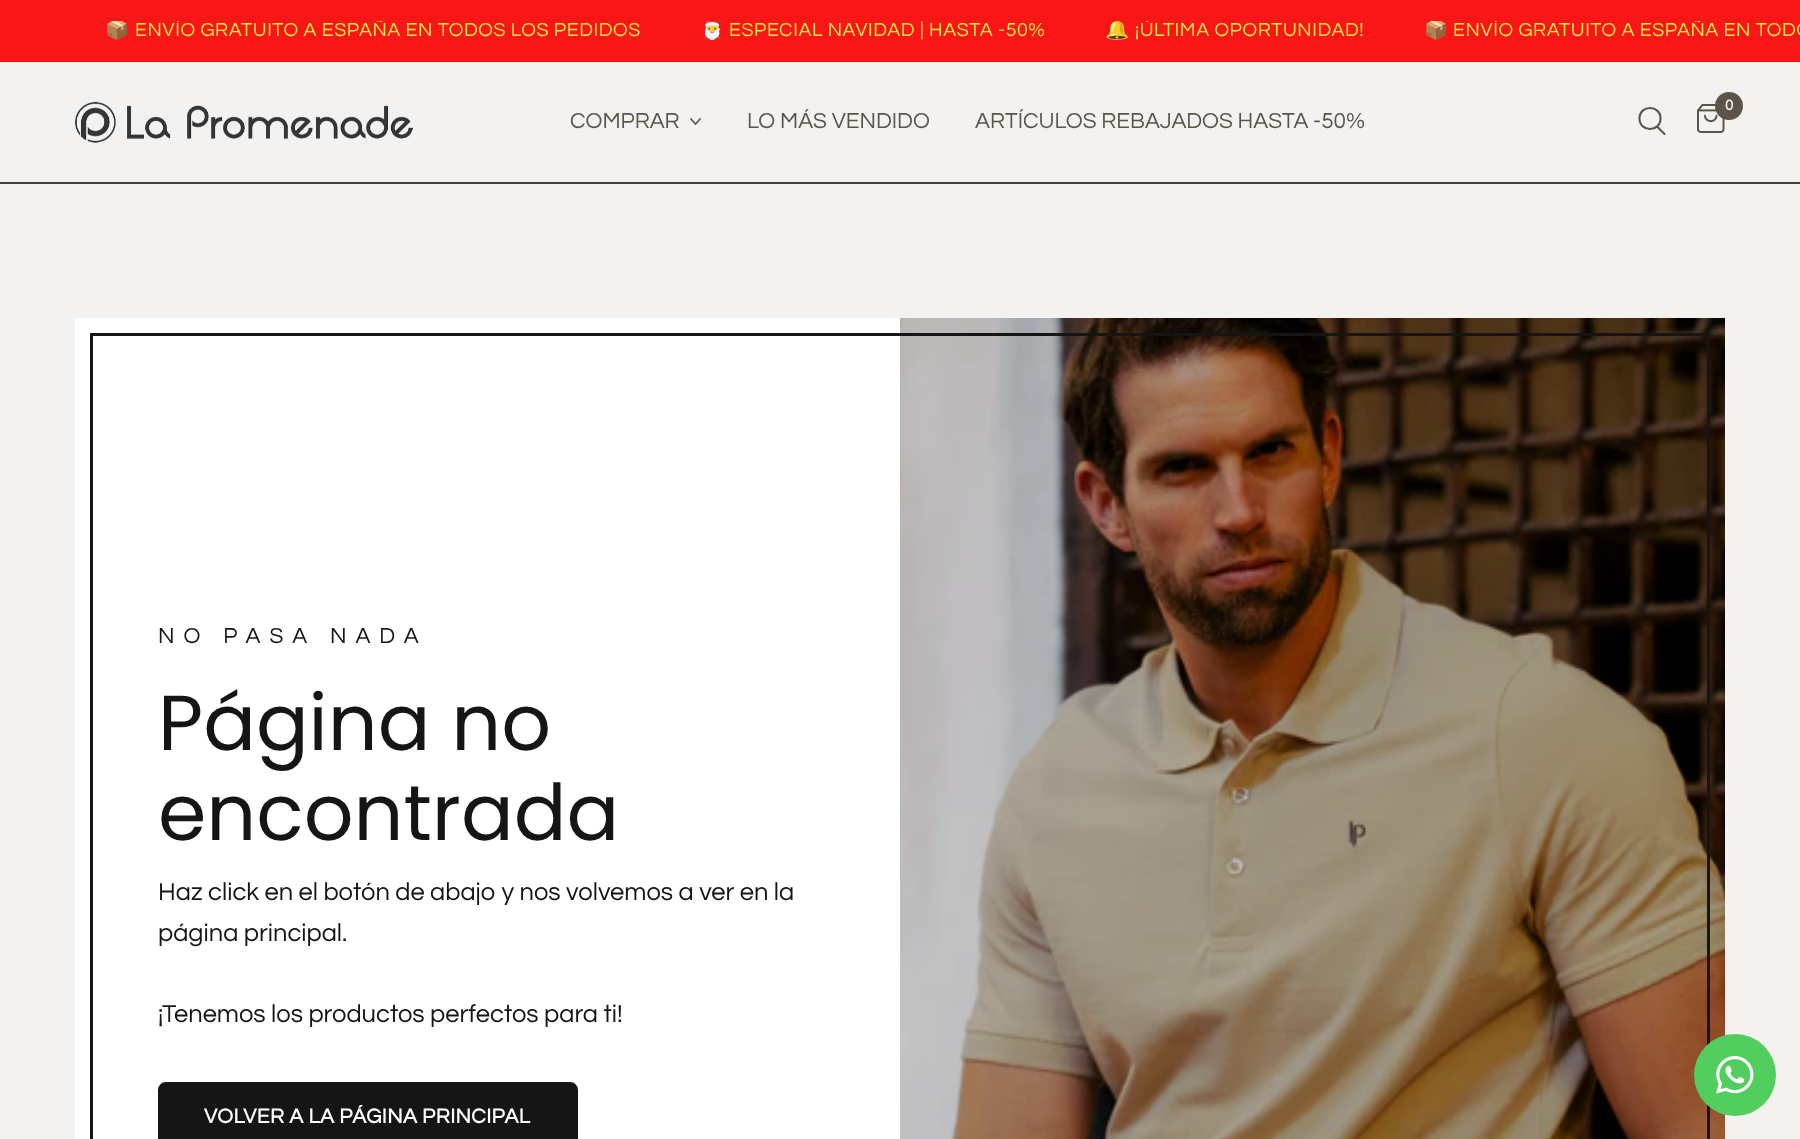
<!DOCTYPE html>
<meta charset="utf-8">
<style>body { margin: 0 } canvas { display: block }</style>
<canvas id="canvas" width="1800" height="1139"></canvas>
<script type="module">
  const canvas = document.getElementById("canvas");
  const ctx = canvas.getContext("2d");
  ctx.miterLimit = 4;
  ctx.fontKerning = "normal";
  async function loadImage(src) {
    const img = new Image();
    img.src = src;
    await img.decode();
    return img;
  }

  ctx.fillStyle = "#f4f2f1";
  ctx.fillRect(0, 0, 1800, 1139);
  ctx.fillStyle = "#f91616";
  ctx.fillRect(0, 0, 1800, 62);
  ctx.save();
  ctx.beginPath();
  ctx.rect(0, 21, 1800, 20);
  ctx.clip();
  ctx.letterSpacing = "0.6px";
  ctx.font = "19.5px Noto Color Emoji";
  ctx.fillStyle = "#ffe548";
  ctx.fillText("📦", 105, 36);
  ctx.font = "19.5px Questrial";
  ctx.fillText("ENVÍO GRATUITO A ESPAÑA EN TODOS LOS PEDIDOS", 135, 36);
  ctx.font = "19.5px Noto Color Emoji";
  ctx.fillText("🎅", 700, 36);
  ctx.restore();
  ctx.letterSpacing = "0.6px";
  ctx.font = "19.5px Questrial";
  ctx.fillStyle = "#ffe548";
  ctx.fillText("ESPECIAL NAVIDAD | HASTA -50%", 729, 36);
  ctx.save();
  ctx.beginPath();
  ctx.rect(0, 21, 1800, 20);
  ctx.clip();
  ctx.font = "19.5px Noto Color Emoji";
  ctx.fillText("🔔", 1105, 36);
  ctx.font = "19.5px Questrial";
  ctx.fillText("¡ÚLTIMA OPORTUNIDAD!", 1135, 36);
  ctx.font = "19.5px Noto Color Emoji";
  ctx.fillText("📦", 1424, 36);
  ctx.font = "19.5px Questrial";
  ctx.fillText("ENVÍO GRATUITO A ESPAÑA EN TODO", 1453, 36);
  ctx.restore();
  ctx.fillStyle = "#44423f";
  ctx.fillRect(0, 182, 1800, 2);
  ctx.drawImage(await loadImage("img1.png"), 75, 101, 338, 42);
  ctx.letterSpacing = "0px";
  ctx.font = "22.5px Questrial";
  ctx.fillStyle = "#5c5448";
  ctx.fillText("COMPRAR", 570, 128);
  ctx.beginPath();
  ctx.moveTo(700, 119);
  ctx.lineTo(695.5, 124);
  ctx.lineTo(691, 119);
  ctx.strokeStyle = "#5c5448";
  ctx.lineWidth = 1.7;
  ctx.lineCap = "round";
  ctx.lineJoin = "round";
  ctx.stroke();
  ctx.fillText("LO MÁS VENDIDO", 747, 128);
  ctx.fillText("ARTÍCULOS REBAJADOS HASTA -50%", 975, 128);
  ctx.drawImage(await loadImage("img2.png"), 1697, 104, 28, 29);
  ctx.beginPath();
  ctx.arc(1729, 106, 14, 0, Math.PI * 2);
  ctx.fill();
  ctx.font = "bold 15px Questrial";
  ctx.fillStyle = "#f4f2f1";
  ctx.fillText("0", 1725, 110);
  ctx.beginPath();
  ctx.moveTo(1657.5, 127);
  ctx.lineTo(1664.5, 134);
  ctx.moveTo(1660.5, 118.5);
  ctx.bezierCurveTo(1660.5, 132.5, 1639.5, 132.5, 1639.5, 118.5);
  ctx.bezierCurveTo(1639.5, 104.5, 1660.5, 104.5, 1660.5, 118.5);
  ctx.closePath();
  ctx.lineWidth = 2.1;
  ctx.stroke();
  ctx.fillStyle = "#ffffff";
  ctx.fillRect(75, 318, 825, 821);
  ctx.drawImage(await loadImage("img3.png"), 900, 318, 825, 821);
  ctx.fillStyle = "#151515";
  ctx.beginPath();
  ctx.roundRect(159, 1083, 418, 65, 7);
  ctx.fill();
  ctx.strokeStyle = "#151515";
  ctx.lineWidth = 2;
  ctx.lineJoin = "miter";
  ctx.stroke();
  ctx.lineWidth = 3;
  ctx.strokeRect(91.5, 334.5, 1617, 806);
  ctx.letterSpacing = "9px";
  ctx.font = "22.5px Questrial";
  ctx.fillText("NO PASA NADA", 158, 643);
  ctx.letterSpacing = "0px";
  ctx.font = "78px Poppins";
  ctx.fillText("Página no", 158, 750);
  ctx.fillText("encontrada", 158, 840);
  ctx.font = "25.5px Questrial";
  ctx.fillText("Haz click en el botón de abajo y nos volvemos a ver en la", 158, 900);
  ctx.fillText("página principal.", 158, 941);
  ctx.fillText("¡Tenemos los productos perfectos para ti!", 158, 1022);
  ctx.letterSpacing = "0.4px";
  ctx.font = "bold 21px Questrial";
  ctx.fillStyle = "#ffffff";
  ctx.fillText("VOLVER A LA PÁGINA PRINCIPAL", 204, 1123);
  ctx.fillStyle = "#52ce5f";
  ctx.beginPath();
  ctx.arc(1735, 1075, 41, 0, Math.PI * 2);
  ctx.fill();
  ctx.drawImage(await loadImage("img4.png"), 1716, 1056, 38, 38);
</script>
